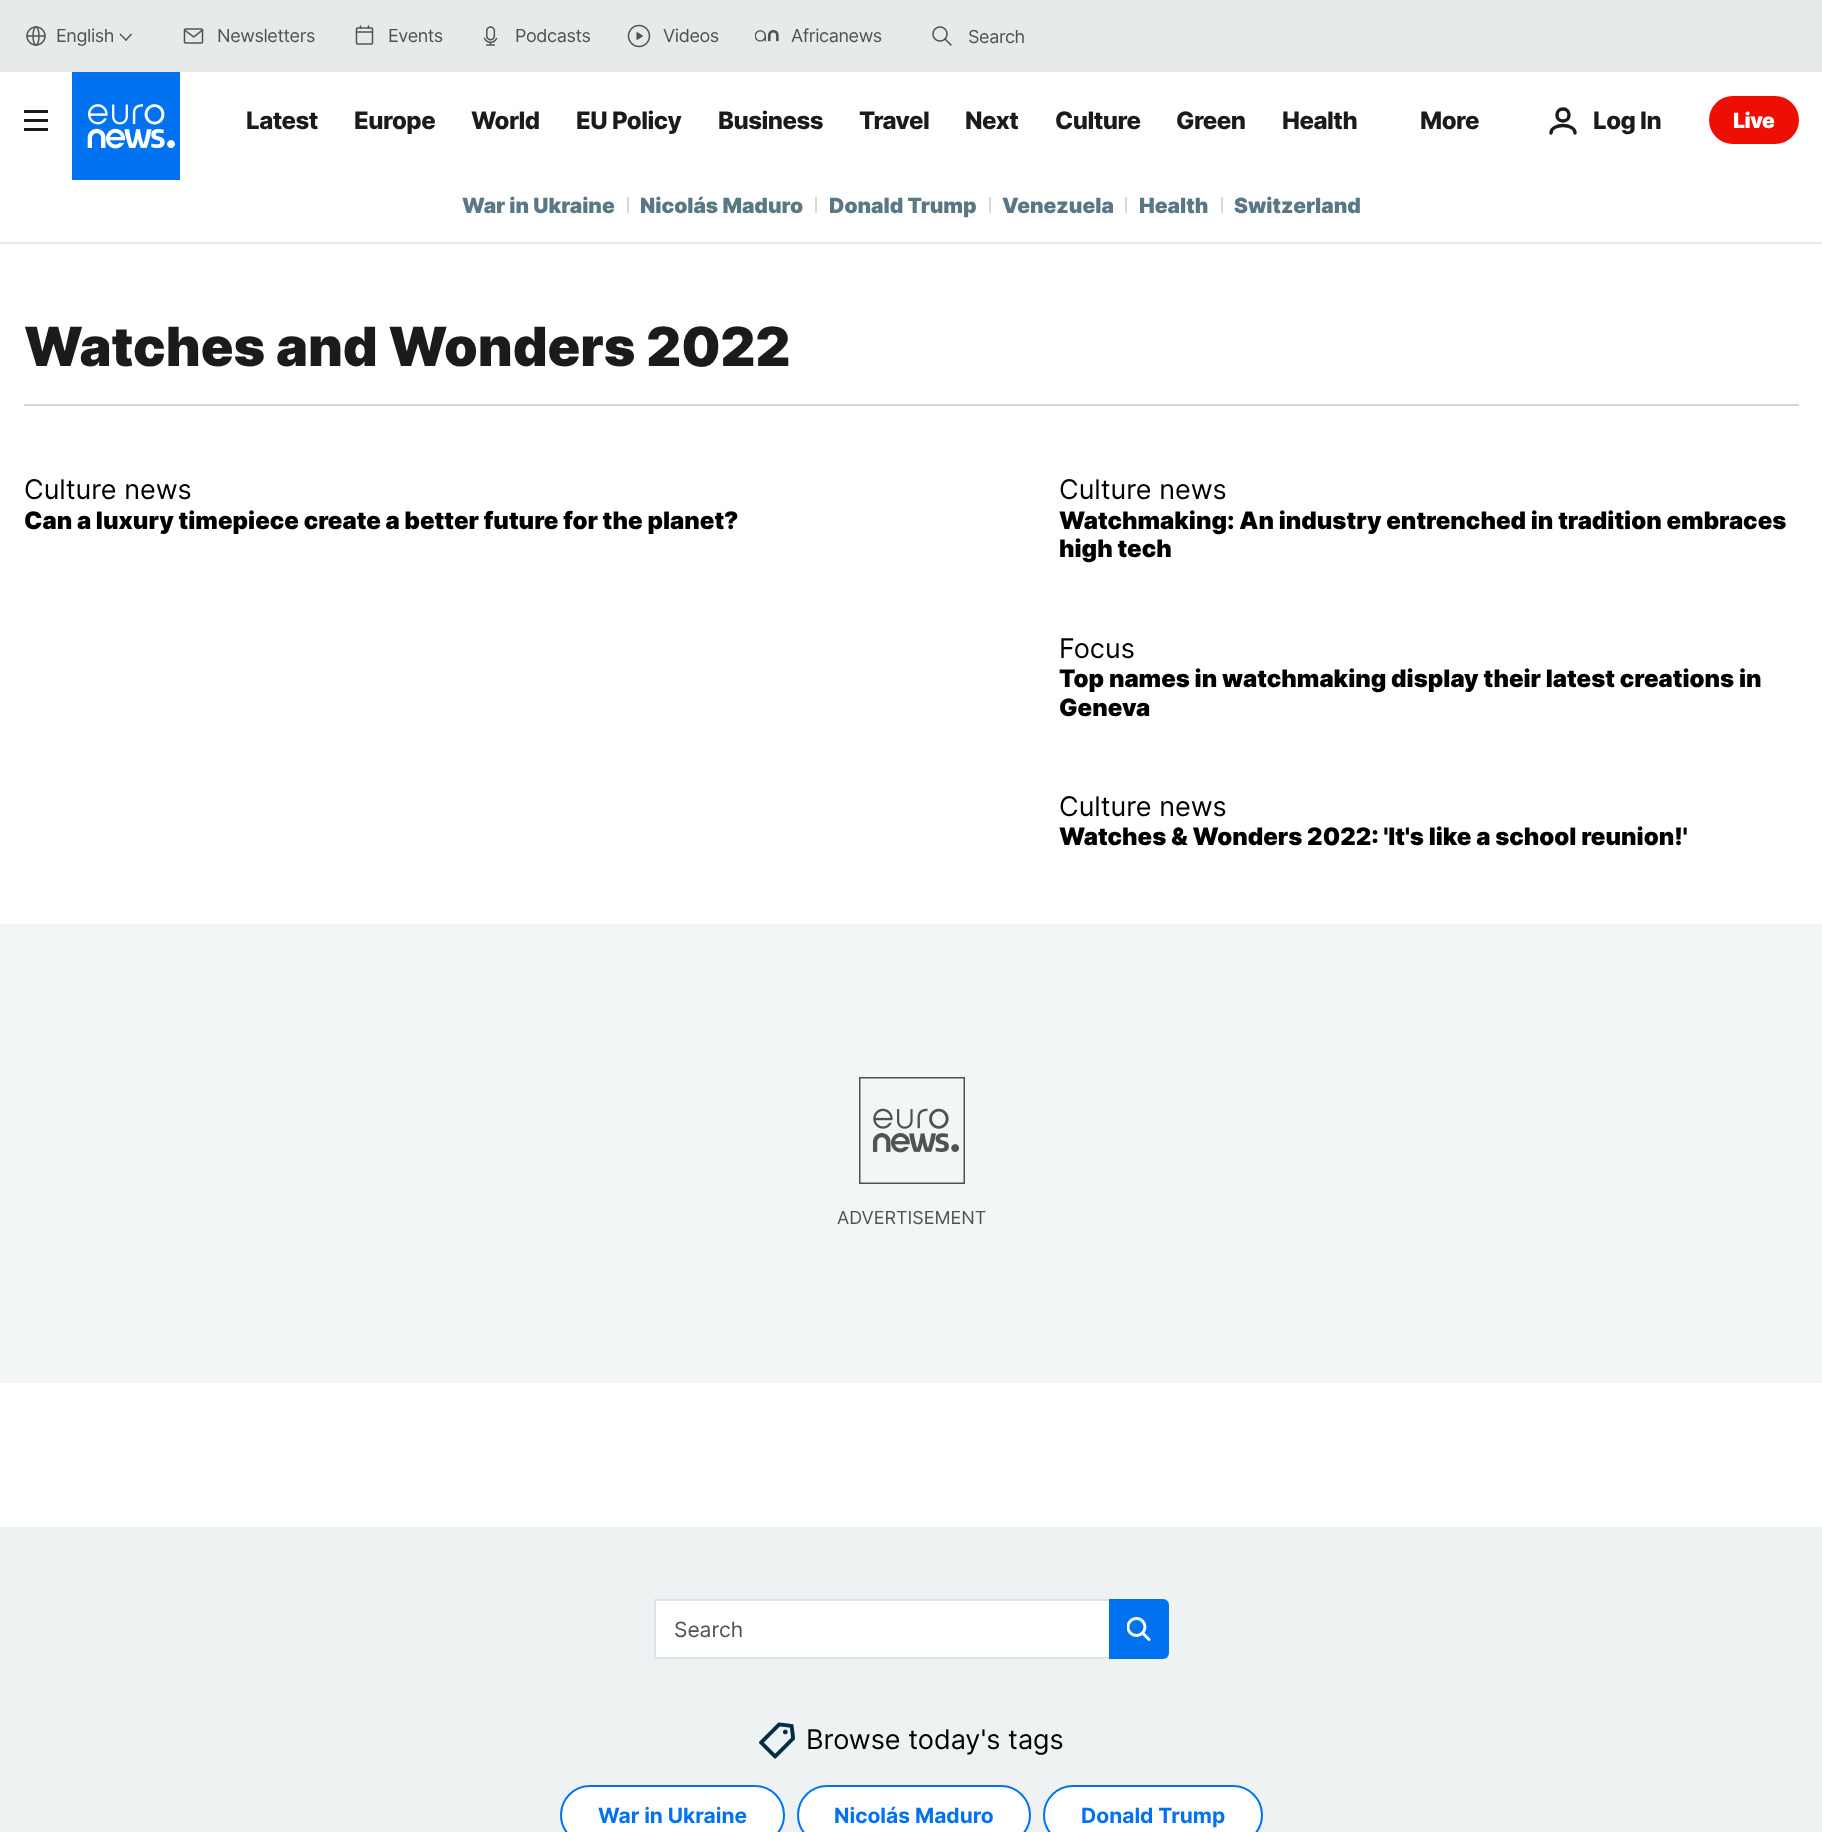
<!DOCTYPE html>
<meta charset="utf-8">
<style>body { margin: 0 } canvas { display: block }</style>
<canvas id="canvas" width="1822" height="1832"></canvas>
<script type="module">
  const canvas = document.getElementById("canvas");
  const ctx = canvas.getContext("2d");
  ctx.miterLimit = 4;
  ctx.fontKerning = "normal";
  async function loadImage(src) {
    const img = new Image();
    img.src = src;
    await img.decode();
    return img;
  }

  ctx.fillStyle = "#ffffff";
  ctx.fillRect(0, 0, 1822, 1832);
  ctx.fillStyle = "#e6eaeb";
  ctx.fillRect(0, 0, 1822, 72);
  ctx.drawImage(await loadImage("img1.png"), 26, 26, 20, 20);
  ctx.letterSpacing = "-0.4px";
  ctx.font = "18px Inter";
  ctx.fillStyle = "#515252";
  ctx.fillText("English", 56, 42);
  ctx.beginPath();
  ctx.moveTo(132, 34.5);
  ctx.lineTo(126, 41);
  ctx.lineTo(125, 40);
  ctx.lineTo(131, 33.5);
  ctx.closePath();
  ctx.fill();
  ctx.beginPath();
  ctx.moveTo(127, 40);
  ctx.lineTo(126, 41);
  ctx.lineTo(119.5, 34.5);
  ctx.lineTo(120.5, 33.5);
  ctx.closePath();
  ctx.fill();
  ctx.drawImage(await loadImage("img2.png"), 183, 28, 21, 16);
  ctx.fillText("Newsletters", 217, 42);
  ctx.drawImage(await loadImage("img3.png"), 355, 25, 19, 20);
  ctx.fillText("Events", 388, 42);
  ctx.drawImage(await loadImage("img4.png"), 483, 26, 15, 20);
  ctx.fillText("Podcasts", 515, 42);
  ctx.drawImage(await loadImage("img5.png"), 627, 24, 24, 24);
  ctx.fillText("Videos", 663, 42);
  ctx.drawImage(await loadImage("img6.png"), 755, 30, 24, 12);
  ctx.fillText("Africanews", 791, 42);
  ctx.drawImage(await loadImage("img7.png"), 932, 26, 20, 20);
  ctx.fillText("Search", 968, 43);
  ctx.fillStyle = "#1a1b1b";
  ctx.fillRect(24, 110, 24, 3);
  ctx.fillRect(24, 119, 24, 3);
  ctx.fillRect(24, 128, 24, 3);
  ctx.drawImage(await loadImage("img8.png"), 72, 72, 108, 108);
  ctx.letterSpacing = "-0.5px";
  ctx.font = "800 24px Inter";
  ctx.fillText("Latest", 246, 129);
  ctx.fillText("Europe", 354, 129);
  ctx.fillText("World", 471, 129);
  ctx.fillText("EU Policy", 576, 129);
  ctx.fillText("Business", 718, 129);
  ctx.fillText("Travel", 859, 129);
  ctx.fillText("Next", 965, 129);
  ctx.fillText("Culture", 1055, 129);
  ctx.fillText("Green", 1176, 129);
  ctx.fillText("Health", 1282, 129);
  ctx.fillText("More", 1420, 129);
  ctx.beginPath();
  ctx.moveTo(1551, 133);
  ctx.bezierCurveTo(1551, 123, 1575, 123, 1575, 133);
  ctx.moveTo(1563, 121);
  ctx.bezierCurveTo(1571, 121, 1571, 109, 1563, 109);
  ctx.bezierCurveTo(1555, 109, 1555, 121, 1563, 121);
  ctx.closePath();
  ctx.strokeStyle = "#1a1b1b";
  ctx.lineWidth = 3.4;
  ctx.lineCap = "round";
  ctx.lineJoin = "round";
  ctx.stroke();
  ctx.fillText("Log In", 1593, 129);
  ctx.fillStyle = "#ed0e05";
  ctx.beginPath();
  ctx.roundRect(1709, 96, 90, 48, 24);
  ctx.fill();
  ctx.font = "900 21px Inter";
  ctx.fillStyle = "#ffffff";
  ctx.fillText("Live", 1733, 128);
  ctx.fillStyle = "#e6eaeb";
  ctx.fillRect(0, 242, 1822, 2);
  ctx.letterSpacing = "0px";
  ctx.fillStyle = "#597785";
  ctx.fillText("War in Ukraine", 462, 213);
  ctx.fillStyle = "#d7dadb";
  ctx.fillRect(627, 197, 2, 16);
  ctx.fillStyle = "#597785";
  ctx.fillText("Nicolás Maduro", 640, 213);
  ctx.fillStyle = "#d7dadb";
  ctx.fillRect(815, 197, 2, 16);
  ctx.fillStyle = "#597785";
  ctx.fillText("Donald Trump", 829, 213);
  ctx.fillStyle = "#d7dadb";
  ctx.fillRect(989, 197, 2, 16);
  ctx.fillStyle = "#597785";
  ctx.fillText("Venezuela", 1002, 213);
  ctx.fillStyle = "#d7dadb";
  ctx.fillRect(1125, 197, 2, 16);
  ctx.fillStyle = "#597785";
  ctx.fillText("Health", 1139, 213);
  ctx.fillStyle = "#d7dadb";
  ctx.fillRect(1221, 197, 2, 16);
  ctx.fillStyle = "#597785";
  ctx.fillText("Switzerland", 1234, 213);
  ctx.fillStyle = "#cdd6db";
  ctx.fillRect(24, 404, 1775, 2);
  ctx.font = "900 54px Inter";
  ctx.fillStyle = "#1a1b1b";
  ctx.fillText("Watches and Wonders 2022", 24, 366);
  ctx.font = "27px Inter";
  ctx.fillStyle = "#000000";
  ctx.fillText("Culture news", 24, 499);
  ctx.font = "900 24px Inter";
  ctx.fillText("Can a luxury timepiece create a better future for the planet?", 24, 529);
  ctx.font = "27px Inter";
  ctx.fillText("Culture news", 1059, 499);
  ctx.font = "900 24px Inter";
  ctx.fillText("Watchmaking: An industry entrenched in tradition embraces", 1059, 529);
  ctx.fillText("high tech", 1059, 557);
  ctx.font = "27px Inter";
  ctx.fillText("Focus", 1059, 658);
  ctx.font = "900 24px Inter";
  ctx.fillText("Top names in watchmaking display their latest creations in", 1059, 687);
  ctx.fillText("Geneva", 1059, 716);
  ctx.font = "27px Inter";
  ctx.fillText("Culture news", 1059, 816);
  ctx.font = "900 24px Inter";
  ctx.fillText("Watches & Wonders 2022: 'It's like a school reunion!'", 1059, 845);
  ctx.fillStyle = "#f2f6f7";
  ctx.fillRect(0, 924, 1822, 459);
  ctx.drawImage(await loadImage("img9.png"), 859, 1077, 106, 107);
  ctx.font = "18px Inter";
  ctx.fillStyle = "#515252";
  ctx.fillText("ADVERTISEMENT", 837, 1224);
  ctx.fillStyle = "#eef2f3";
  ctx.fillRect(0, 1527, 1822, 305);
  ctx.fillStyle = "#ffffff";
  ctx.beginPath();
  ctx.roundRect(655, 1600, 513, 58, [0, 5, 5, 0]);
  ctx.fill();
  ctx.strokeStyle = "#dce4e7";
  ctx.lineWidth = 2;
  ctx.lineJoin = "miter";
  ctx.stroke();
  ctx.font = "21px Inter";
  ctx.fillStyle = "#515252";
  ctx.fillText("Search", 674, 1637);
  ctx.fillStyle = "#0172f0";
  ctx.beginPath();
  ctx.roundRect(1109, 1599, 60, 60, [0, 6, 6, 0]);
  ctx.fill();
  ctx.drawImage(await loadImage("img10.png"), 1127, 1617, 24, 24);
  ctx.drawImage(await loadImage("img11.png"), 759, 1722, 36, 37);
  ctx.font = "27px Inter";
  ctx.fillStyle = "#000000";
  ctx.fillText("Browse today's tags", 806, 1749);
  ctx.fillStyle = "#ffffff";
  ctx.beginPath();
  ctx.roundRect(561, 1786, 223, 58, 29);
  ctx.fill();
  ctx.strokeStyle = "#0172f0";
  ctx.stroke();
  ctx.font = "bold 21px Inter";
  ctx.fillStyle = "#0172f0";
  ctx.fillText("War in Ukraine", 598, 1823);
  ctx.fillStyle = "#ffffff";
  ctx.beginPath();
  ctx.roundRect(798, 1786, 232, 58, 29);
  ctx.fill();
  ctx.stroke();
  ctx.fillStyle = "#0172f0";
  ctx.fillText("Nicolás Maduro", 834, 1823);
  ctx.fillStyle = "#ffffff";
  ctx.beginPath();
  ctx.roundRect(1044, 1786, 218, 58, 29);
  ctx.fill();
  ctx.stroke();
  ctx.fillStyle = "#0172f0";
  ctx.fillText("Donald Trump", 1081, 1823);
</script>
